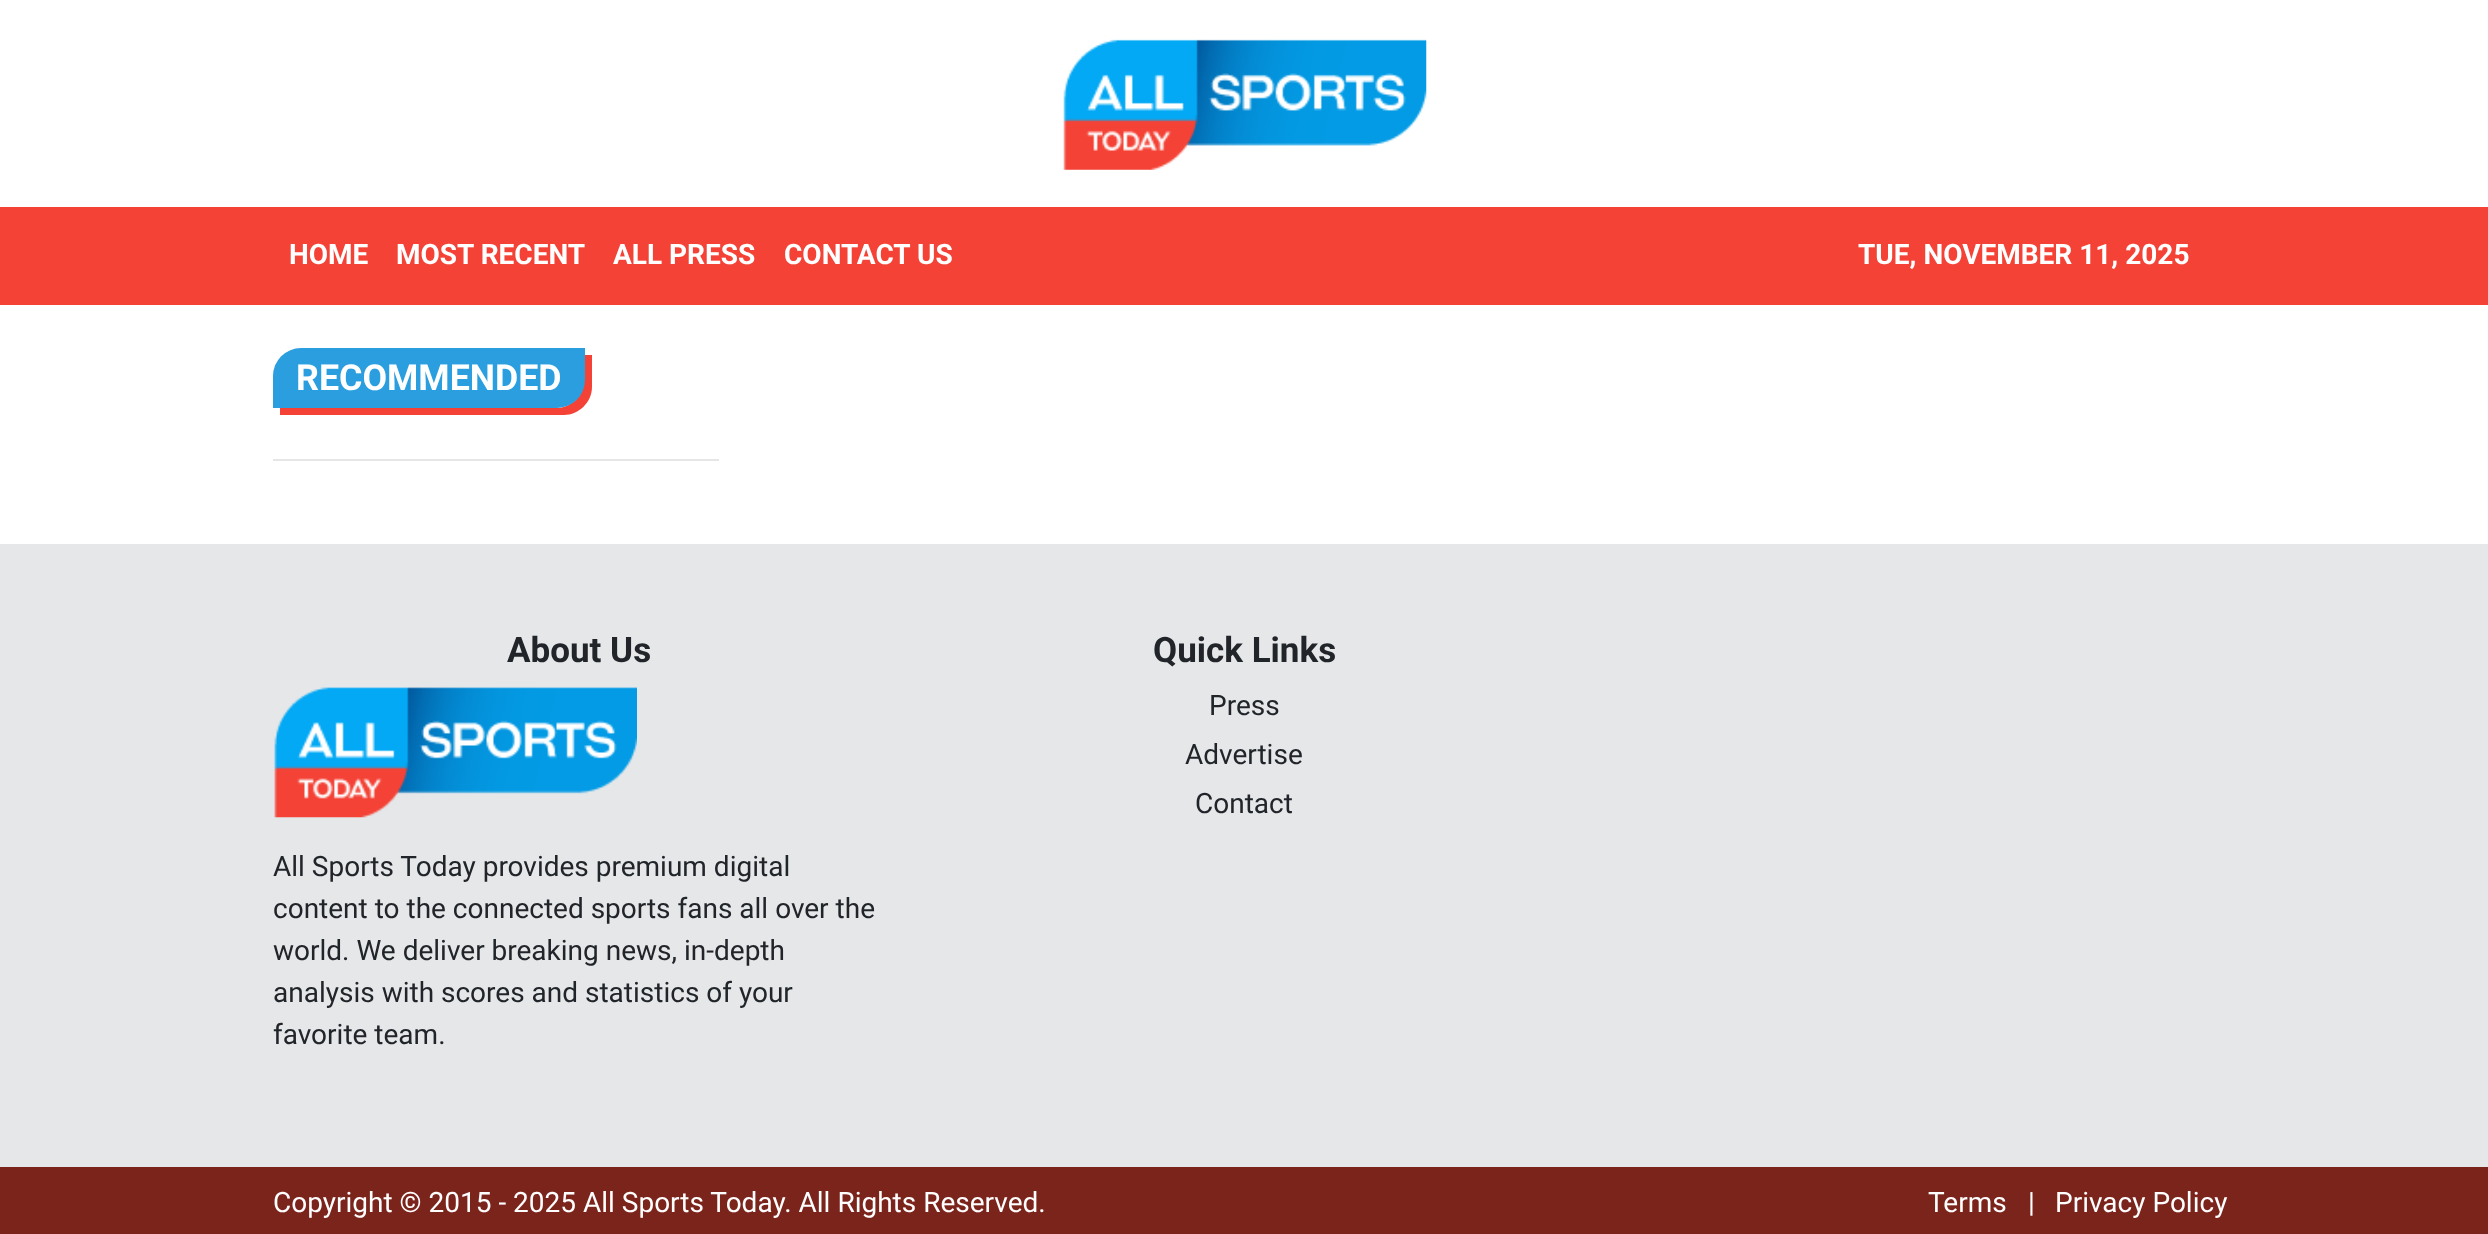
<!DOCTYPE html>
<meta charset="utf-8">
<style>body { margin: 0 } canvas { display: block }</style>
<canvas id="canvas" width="2488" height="1234"></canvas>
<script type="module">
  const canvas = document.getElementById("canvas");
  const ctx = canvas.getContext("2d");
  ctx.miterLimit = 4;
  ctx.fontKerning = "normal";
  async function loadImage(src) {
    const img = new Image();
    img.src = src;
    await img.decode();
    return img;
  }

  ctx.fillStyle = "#ffffff";
  ctx.fillRect(0, 0, 2488, 1234);
  ctx.drawImage(await loadImage("img1.png"), 1063, 39, 364, 131);
  ctx.fillStyle = "#f44336";
  ctx.fillRect(0, 207, 2488, 98);
  ctx.font = "bold 28px Roboto";
  ctx.fillStyle = "#ffffff";
  ctx.fillText("HOME", 289, 264);
  ctx.fillText("MOST RECENT", 396, 264);
  ctx.fillText("ALL PRESS", 613, 264);
  ctx.fillText("CONTACT US", 784, 264);
  ctx.fillText("TUE, NOVEMBER 11, 2025", 1858, 264);
  ctx.fillStyle = "#f44336";
  ctx.beginPath();
  ctx.moveTo(280, 408);
  ctx.lineTo(280, 415);
  ctx.lineTo(564, 415);
  ctx.bezierCurveTo(579, 415, 592, 402, 592, 387);
  ctx.lineTo(592, 355);
  ctx.lineTo(584, 355);
  ctx.lineTo(584, 380);
  ctx.bezierCurveTo(584, 395, 572, 408, 556, 408);
  ctx.closePath();
  ctx.fill();
  ctx.fillStyle = "#2a9ede";
  ctx.beginPath();
  ctx.roundRect(273, 348, 312, 60, [28, 0, 28, 0]);
  ctx.fill();
  ctx.font = "bold 35.75px Roboto";
  ctx.fillStyle = "#ffffff";
  ctx.fillText("RECOMMENDED", 296, 390);
  ctx.fillStyle = "#e6e6e6";
  ctx.fillRect(273, 459, 446, 2);
  ctx.fillStyle = "#e5e7e9";
  ctx.fillRect(0, 544, 2488, 623);
  ctx.font = "bold 35px Roboto";
  ctx.fillStyle = "#212529";
  ctx.fillText("About Us", 507, 662);
  ctx.drawImage(await loadImage("img2.png"), 274, 687, 363, 131);
  ctx.font = "28px Roboto";
  ctx.fillText("All Sports Today provides premium digital", 273, 876);
  ctx.fillText("content to the connected sports fans all over the", 273, 918);
  ctx.fillText("world. We deliver breaking news, in-depth", 273, 960);
  ctx.fillText("analysis with scores and statistics of your", 273, 1002);
  ctx.fillText("favorite team.", 273, 1044);
  ctx.font = "bold 35px Roboto";
  ctx.fillText("Quick Links", 1153, 662);
  ctx.font = "28px Roboto";
  ctx.fillText("Press", 1209, 715);
  ctx.fillText("Advertise", 1185, 764);
  ctx.fillText("Contact", 1195, 813);
  ctx.fillStyle = "#7b241c";
  ctx.fillRect(0, 1167, 2488, 67);
  ctx.fillStyle = "#ffffff";
  ctx.fillText("Copyright © 2015 - 2025 All Sports Today. All Rights Reserved.", 273, 1212);
  ctx.fillText("Terms", 1928, 1212);
  ctx.fillText("|", 2028, 1212);
  ctx.fillText("Privacy Policy", 2055, 1212);
</script>
